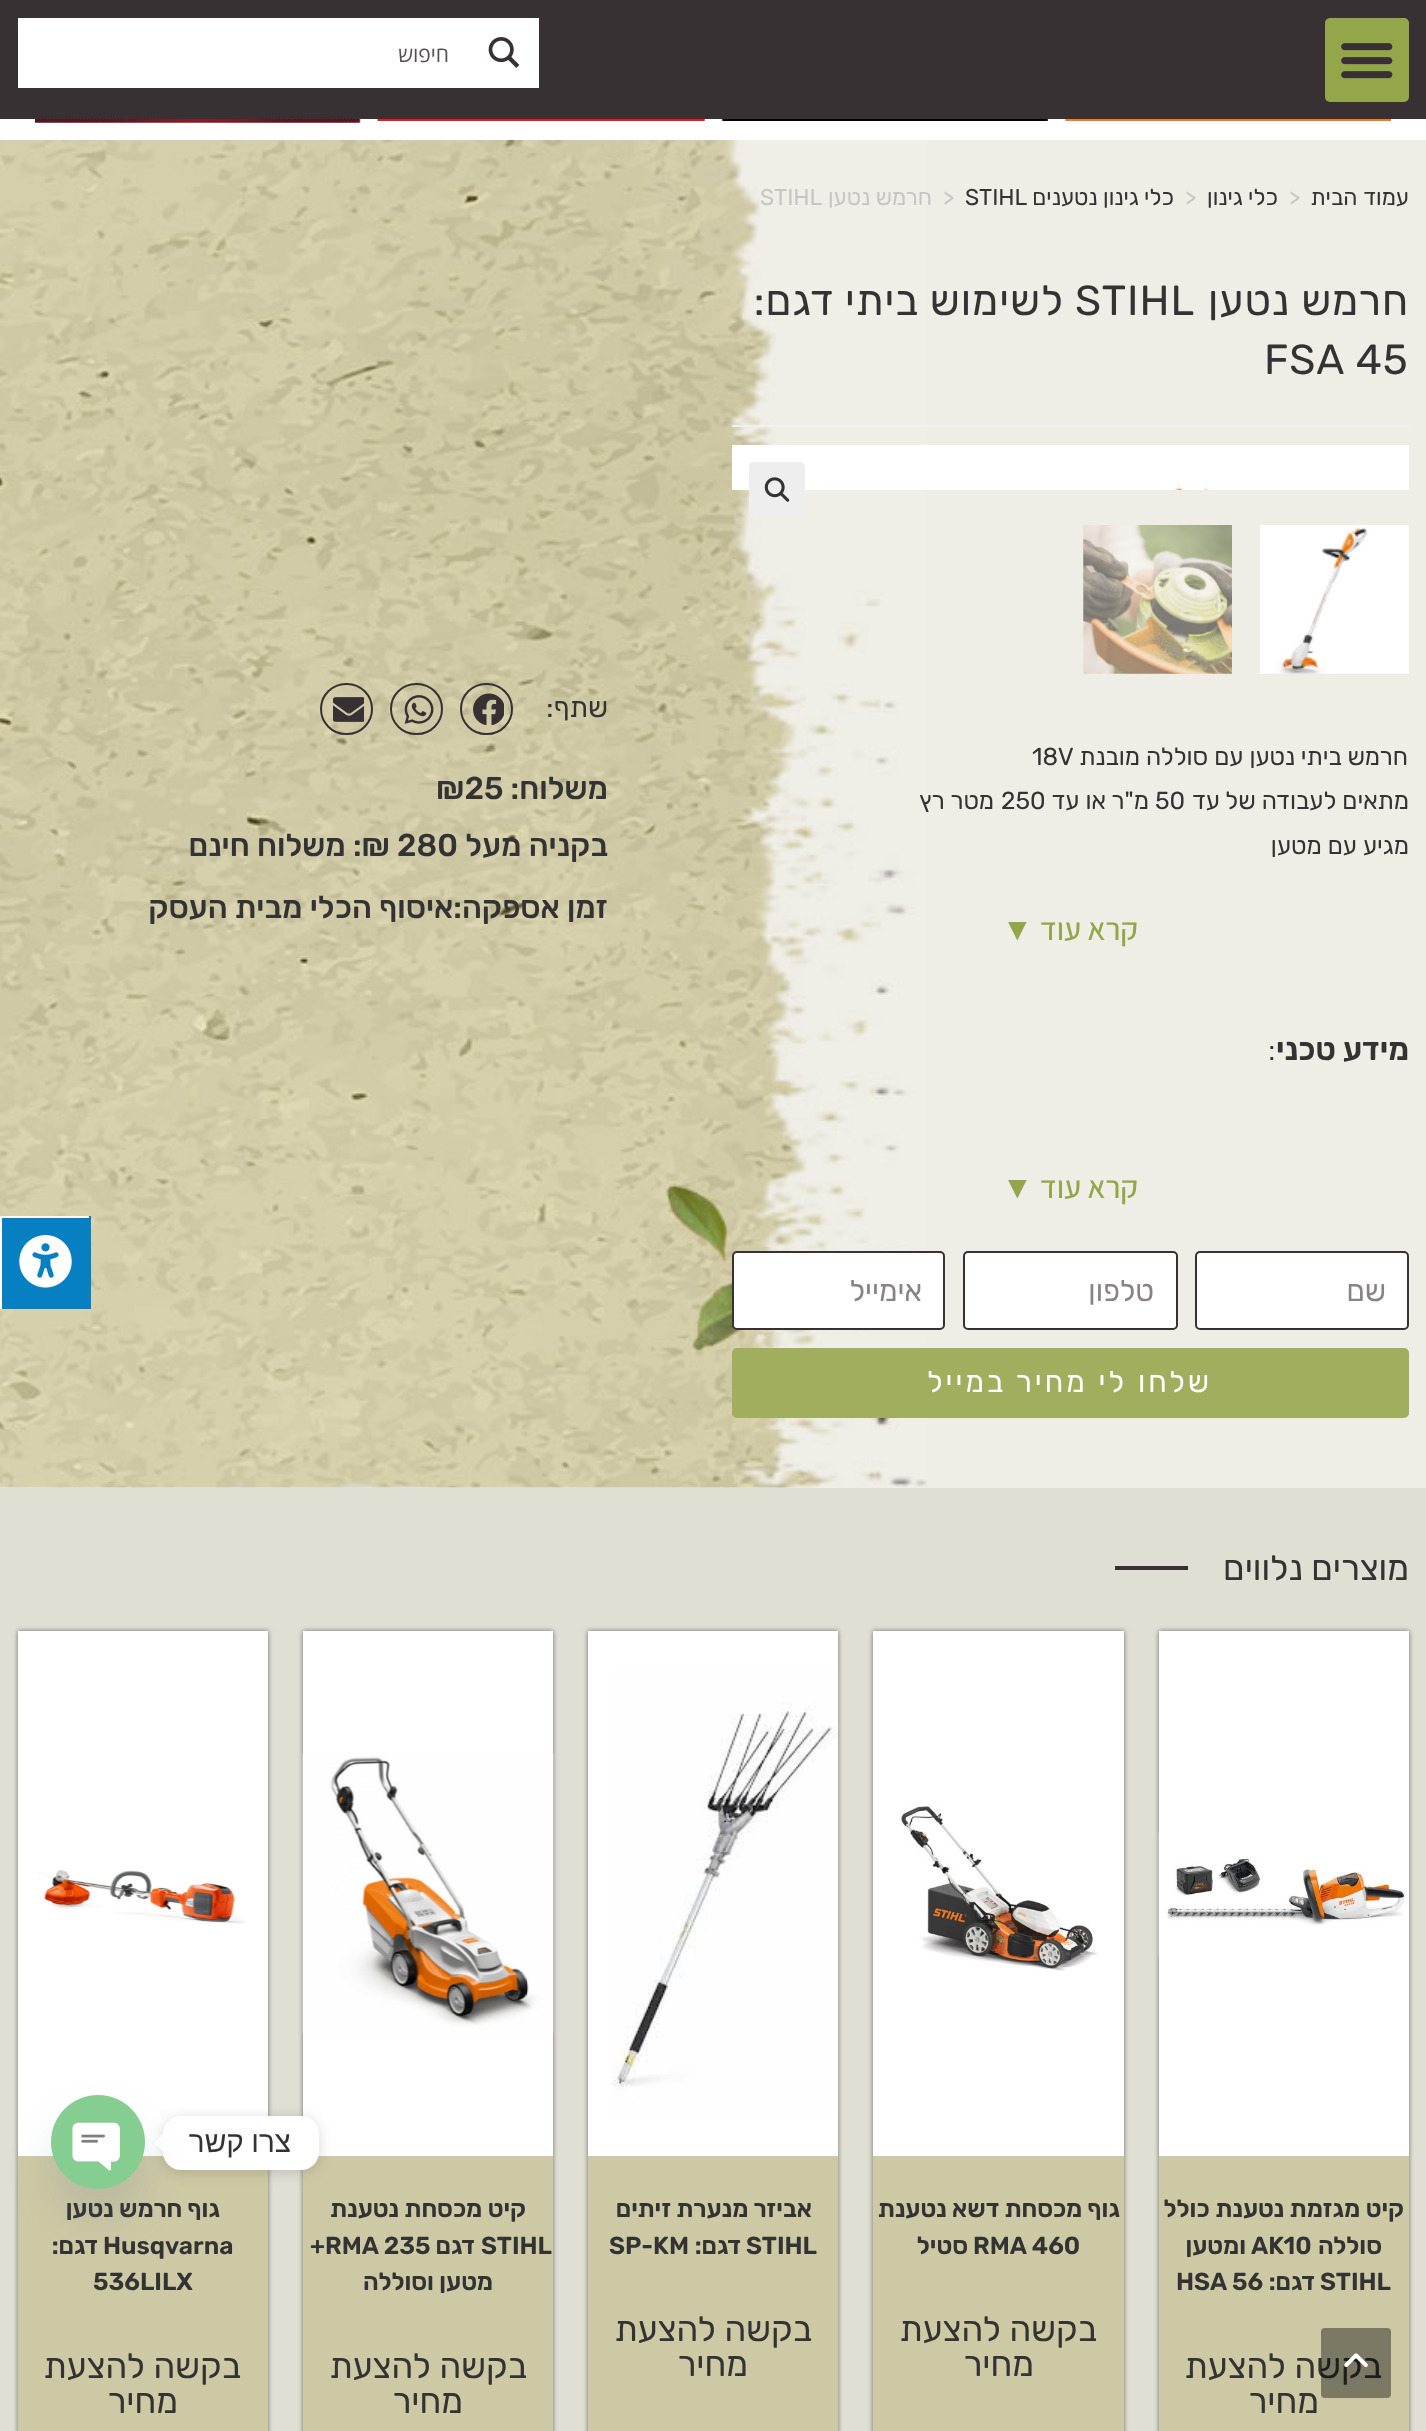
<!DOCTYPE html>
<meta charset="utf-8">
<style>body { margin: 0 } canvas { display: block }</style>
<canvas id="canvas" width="1426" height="2431"></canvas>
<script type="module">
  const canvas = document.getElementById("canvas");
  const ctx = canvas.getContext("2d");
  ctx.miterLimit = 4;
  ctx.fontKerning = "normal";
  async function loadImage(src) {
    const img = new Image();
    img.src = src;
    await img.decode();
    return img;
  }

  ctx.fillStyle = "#eeede6";
  ctx.fillRect(0, 0, 1426, 2431);
  ctx.fillStyle = "#ffffff";
  ctx.fillRect(0, 119, 1426, 21);
  ctx.fillStyle = "#383134";
  ctx.fillRect(0, 0, 1426, 119);
  ctx.fillStyle = "#93a64a";
  ctx.beginPath();
  ctx.roundRect(1325, 18, 84, 84, 5);
  ctx.fill();
  ctx.drawImage(await loadImage("img1.png"), 1341, 43, 52, 36);
  ctx.fillStyle = "#ffffff";
  ctx.fillRect(18, 18, 521, 70);
  ctx.drawImage(await loadImage("img2.png"), 488, 37, 32, 31);
  ctx.direction = "rtl";
  ctx.font = "21px Open Sans";
  ctx.fillStyle = "#565052";
  ctx.fillText("חיפוש", 449, 62);
  ctx.drawImage(await loadImage("img3.png"), 1064, 119, 327, 2);
  ctx.drawImage(await loadImage("img4.png"), 721, 119, 327, 2);
  ctx.drawImage(await loadImage("img5.png"), 376, 119, 329, 2);
  ctx.drawImage(await loadImage("img6.png"), 35, 119, 326, 4);
  ctx.drawImage(await loadImage("img7.png"), 0, 140, 927, 1348);
  ctx.wordSpacing = "1px";
  ctx.font = "22.75px Rubik";
  ctx.fillStyle = "#333333";
  ctx.fillText("עמוד הבית", 1409, 205);
  ctx.wordSpacing = "0px";
  ctx.direction = "ltr";
  ctx.fillStyle = "#c6c6c6";
  ctx.fillText(">", 1289, 205);
  ctx.direction = "rtl";
  ctx.fillStyle = "#333333";
  ctx.fillText("כלי גינון", 1278, 205);
  ctx.direction = "ltr";
  ctx.fillStyle = "#c6c6c6";
  ctx.fillText(">", 1185, 205);
  ctx.direction = "rtl";
  ctx.fillStyle = "#333333";
  ctx.fillText("כלי גינון נטענים", 1174, 205);
  ctx.direction = "ltr";
  ctx.fillText("STIHL", 965, 205);
  ctx.fillStyle = "#c6c6c6";
  ctx.fillText(">", 943, 205);
  ctx.direction = "rtl";
  ctx.fillText("חרמש נטען", 932, 205);
  ctx.direction = "ltr";
  ctx.fillText("STIHL", 760, 205);
  ctx.fillStyle = "#f1f1f1";
  ctx.fillRect(732, 425, 677, 2);
  ctx.letterSpacing = "1px";
  ctx.direction = "rtl";
  ctx.font = "42px Rubik";
  ctx.fillStyle = "#333333";
  ctx.fillText("חרמש נטען", 1409, 315);
  ctx.direction = "ltr";
  ctx.fillText("STIHL", 1075, 315);
  ctx.direction = "rtl";
  ctx.fillText("לשימוש ביתי דגם:", 1064, 315);
  ctx.direction = "ltr";
  ctx.fillText("FSA 45", 1264, 374);
  ctx.drawImage(await loadImage("img8.png"), 732, 445, 677, 45);
  ctx.fillStyle = "#eeeeee";
  ctx.beginPath();
  ctx.roundRect(749, 462, 56, 56, 5);
  ctx.fill();
  ctx.drawImage(await loadImage("img9.png"), 764, 477, 26, 25);
  ctx.drawImage(await loadImage("img10.png"), 1260, 525, 149, 149);
  ctx.drawImage(await loadImage("img11.png"), 1083, 525, 149, 149);
  ctx.letterSpacing = "0px";
  ctx.direction = "rtl";
  ctx.font = "24.5px Rubik";
  ctx.fillStyle = "#333333";
  ctx.fillText("חרמש ביתי נטען עם סוללה מובנת", 1408, 765);
  ctx.direction = "ltr";
  ctx.fillText("18V", 1032, 765);
  ctx.direction = "rtl";
  ctx.fillText("מתאים לעבודה של עד", 1409, 809);
  ctx.direction = "ltr";
  ctx.fillText("50", 1155, 809);
  ctx.direction = "rtl";
  ctx.fillText("מ\"ר או עד", 1149, 809);
  ctx.direction = "ltr";
  ctx.fillText("250", 1001, 809);
  ctx.direction = "rtl";
  ctx.fillText("מטר רץ", 994, 809);
  ctx.fillText("מגיע עם מטען", 1409, 854);
  ctx.font = "500 31.5px Assistant";
  ctx.fillStyle = "#93a64a";
  ctx.fillText("קרא עוד", 1138, 940);
  ctx.font = "31.5px Liberation Sans";
  ctx.fillText("▼", 1033, 940);
  ctx.font = "600 31.5px Rubik";
  ctx.fillStyle = "#333333";
  ctx.fillText("מידע טכני", 1409, 1060);
  ctx.direction = "ltr";
  ctx.font = "300 31.5px Rubik";
  ctx.fillText(":", 1268, 1060);
  ctx.direction = "rtl";
  ctx.font = "500 31.5px Assistant";
  ctx.fillStyle = "#93a64a";
  ctx.fillText("קרא עוד", 1138, 1198);
  ctx.font = "31.5px Liberation Sans";
  ctx.fillText("▼", 1033, 1198);
  ctx.fillStyle = "#ffffff";
  ctx.beginPath();
  ctx.roundRect(1196, 1252, 212, 77, 4);
  ctx.fill();
  ctx.strokeStyle = "#383134";
  ctx.lineWidth = 2;
  ctx.stroke();
  ctx.font = "29.75px Rubik";
  ctx.fillStyle = "#888385";
  ctx.fillText("שם", 1386, 1301);
  ctx.fillStyle = "#ffffff";
  ctx.beginPath();
  ctx.roundRect(964, 1252, 213, 77, 4);
  ctx.fill();
  ctx.stroke();
  ctx.fillStyle = "#888385";
  ctx.fillText("טלפון", 1154, 1301);
  ctx.fillStyle = "#ffffff";
  ctx.beginPath();
  ctx.roundRect(733, 1252, 211, 77, 4);
  ctx.fill();
  ctx.stroke();
  ctx.fillStyle = "#888385";
  ctx.fillText("אימייל", 922, 1301);
  ctx.fillStyle = "#a0ae5d";
  ctx.beginPath();
  ctx.roundRect(734, 1350, 673, 66, 3);
  ctx.fill();
  ctx.strokeStyle = "#a0ae5d";
  ctx.lineWidth = 4;
  ctx.stroke();
  ctx.letterSpacing = "3px";
  ctx.wordSpacing = "0.5px";
  ctx.fillStyle = "#ffffff";
  ctx.fillText("שלחו לי מחיר במייל", 1212, 1392);
  ctx.letterSpacing = "0px";
  ctx.wordSpacing = "0px";
  ctx.font = "28px Rubik";
  ctx.fillStyle = "#333333";
  ctx.fillText("שתף:", 608, 717);
  ctx.beginPath();
  ctx.roundRect(461, 684, 51, 50, 25);
  ctx.strokeStyle = "#383134";
  ctx.lineWidth = 2;
  ctx.stroke();
  ctx.drawImage(await loadImage("img12.png"), 473, 693, 31, 32);
  ctx.beginPath();
  ctx.roundRect(391, 684, 51, 50, 25);
  ctx.stroke();
  ctx.drawImage(await loadImage("img13.png"), 404, 695, 30, 29);
  ctx.beginPath();
  ctx.roundRect(321, 684, 51, 50, 25);
  ctx.stroke();
  ctx.drawImage(await loadImage("img14.png"), 333, 697, 31, 25);
  ctx.font = "500 31.5px Rubik";
  ctx.fillText("משלוח:", 608, 799);
  ctx.direction = "ltr";
  ctx.fillText("₪25", 436, 799);
  ctx.direction = "rtl";
  ctx.fillText("בקניה מעל", 608, 856);
  ctx.direction = "ltr";
  ctx.fillText("280", 397, 856);
  ctx.direction = "rtl";
  ctx.fillText("₪: משלוח חינם", 390, 856);
  ctx.fillText("זמן אספקה:איסוף הכלי מבית העסק", 608, 918);
  ctx.fillStyle = "#e0dfd4";
  ctx.fillRect(0, 1488, 1426, 943);
  ctx.font = "35px Rubik";
  ctx.fillStyle = "#333333";
  ctx.fillText("מוצרים נלווים", 1409, 1580);
  ctx.fillStyle = "#383134";
  ctx.fillRect(1115, 1566, 73, 4);
  ctx.fillStyle = "rgba(0, 0, 0, 0.5)";
  ctx.filter = "blur(2.5px)";
  ctx.beginPath();
  ctx.rect(1159, 1631, 250, 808);
  ctx.fill();
  ctx.filter = "none";
  ctx.fillStyle = "#cec9a5";
  ctx.fillRect(1159, 2156, 250, 275);
  ctx.fillStyle = "#ffffff";
  ctx.fillRect(1159, 1631, 250, 525);
  ctx.drawImage(await loadImage("img15.png"), 1158, 1832, 247, 123);
  ctx.font = "600 24.5px Rubik";
  ctx.fillStyle = "#333333";
  ctx.fillText("קיט מגזמת נטענת כולל", 1404, 2217);
  ctx.fillText("סוללה", 1382, 2254);
  ctx.direction = "ltr";
  ctx.fillText("AK10", 1251, 2254);
  ctx.direction = "rtl";
  ctx.fillText("ומטען", 1246, 2254);
  ctx.direction = "ltr";
  ctx.fillText("STIHL", 1320, 2290);
  ctx.direction = "rtl";
  ctx.fillText("דגם:", 1315, 2290);
  ctx.direction = "ltr";
  ctx.fillText("HSA 56", 1176, 2290);
  ctx.direction = "rtl";
  ctx.font = "35px Rubik";
  ctx.fillText("בקשה להצעת", 1382, 2378);
  ctx.fillText("מחיר", 1319, 2413);
  ctx.fillStyle = "rgba(0, 0, 0, 0.5)";
  ctx.filter = "blur(2.5px)";
  ctx.beginPath();
  ctx.rect(873, 1631, 251, 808);
  ctx.fill();
  ctx.filter = "none";
  ctx.fillStyle = "#cec9a5";
  ctx.fillRect(873, 2156, 251, 275);
  ctx.fillStyle = "#ffffff";
  ctx.fillRect(873, 1631, 251, 525);
  ctx.drawImage(await loadImage("img16.png"), 900, 1805, 199, 166);
  ctx.font = "600 24.5px Rubik";
  ctx.fillStyle = "#333333";
  ctx.fillText("גוף מכסחת דשא נטענת", 1120, 2217);
  ctx.direction = "ltr";
  ctx.fillText("RMA 460", 973, 2254);
  ctx.direction = "rtl";
  ctx.fillText("סטיל", 968, 2254);
  ctx.font = "35px Rubik";
  ctx.fillText("בקשה להצעת", 1097, 2341);
  ctx.fillText("מחיר", 1034, 2376);
  ctx.fillStyle = "rgba(0, 0, 0, 0.5)";
  ctx.filter = "blur(2.5px)";
  ctx.beginPath();
  ctx.rect(588, 1631, 250, 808);
  ctx.fill();
  ctx.filter = "none";
  ctx.fillStyle = "#cec9a5";
  ctx.fillRect(588, 2156, 250, 275);
  ctx.fillStyle = "#ffffff";
  ctx.fillRect(588, 1631, 250, 525);
  ctx.drawImage(await loadImage("img17.png"), 612, 1666, 227, 453);
  ctx.font = "600 24.5px Rubik";
  ctx.fillStyle = "#333333";
  ctx.fillText("אביזר מנערת זיתים", 812, 2217);
  ctx.direction = "ltr";
  ctx.fillText("STIHL", 746, 2254);
  ctx.direction = "rtl";
  ctx.fillText("דגם:", 741, 2254);
  ctx.direction = "ltr";
  ctx.fillText("SP-KM", 609, 2254);
  ctx.direction = "rtl";
  ctx.font = "35px Rubik";
  ctx.fillText("בקשה להצעת", 812, 2341);
  ctx.fillText("מחיר", 748, 2376);
  ctx.fillStyle = "rgba(0, 0, 0, 0.5)";
  ctx.filter = "blur(2.5px)";
  ctx.beginPath();
  ctx.rect(303, 1631, 250, 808);
  ctx.fill();
  ctx.filter = "none";
  ctx.fillStyle = "#cec9a5";
  ctx.fillRect(303, 2156, 250, 275);
  ctx.fillStyle = "#ffffff";
  ctx.fillRect(303, 1631, 250, 525);
  ctx.drawImage(await loadImage("img18.png"), 302, 1753, 252, 281);
  ctx.font = "600 24.5px Rubik";
  ctx.fillStyle = "#333333";
  ctx.fillText("קיט מכסחת נטענת", 526, 2217);
  ctx.direction = "ltr";
  ctx.fillText("STIHL", 481, 2254);
  ctx.direction = "rtl";
  ctx.fillText("דגם", 475, 2254);
  ctx.direction = "ltr";
  ctx.fillText("+RMA 235", 310, 2254);
  ctx.direction = "rtl";
  ctx.fillText("מטען וסוללה", 493, 2290);
  ctx.font = "35px Rubik";
  ctx.fillText("בקשה להצעת", 527, 2378);
  ctx.fillText("מחיר", 463, 2413);
  ctx.fillStyle = "rgba(0, 0, 0, 0.5)";
  ctx.filter = "blur(2.5px)";
  ctx.beginPath();
  ctx.rect(18, 1631, 250, 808);
  ctx.fill();
  ctx.filter = "none";
  ctx.fillStyle = "#cec9a5";
  ctx.fillRect(18, 2156, 250, 275);
  ctx.fillStyle = "#ffffff";
  ctx.fillRect(18, 1631, 250, 525);
  ctx.drawImage(await loadImage("img19.png"), 38, 1869, 209, 55);
  ctx.font = "600 24.5px Rubik";
  ctx.fillStyle = "#333333";
  ctx.fillText("גוף חרמש נטען", 220, 2217);
  ctx.direction = "ltr";
  ctx.fillText("Husqvarna", 103, 2254);
  ctx.direction = "rtl";
  ctx.fillText("דגם:", 98, 2254);
  ctx.direction = "ltr";
  ctx.fillText("536LILX", 93, 2290);
  ctx.direction = "rtl";
  ctx.font = "35px Rubik";
  ctx.fillText("בקשה להצעת", 241, 2378);
  ctx.fillText("מחיר", 178, 2413);
  ctx.fillStyle = "#0780c3";
  ctx.fillRect(2, 1218, 87, 91);
  ctx.fillStyle = "#ffffff";
  ctx.fillRect(0, 1216, 91, 2);
  ctx.fillStyle = "#0780c3";
  ctx.fillRect(89, 1216, 2, 93);
  ctx.fillStyle = "#ffffff";
  ctx.fillRect(0, 1216, 2, 93);
  ctx.drawImage(await loadImage("img20.png"), 19, 1235, 53, 53);
  ctx.fillStyle = "rgba(0, 0, 0, 0.15)";
  ctx.filter = "blur(7px)";
  ctx.beginPath();
  ctx.roundRect(163, 2118, 156, 54, 18);
  ctx.fill();
  ctx.filter = "none";
  ctx.fillStyle = "#ffffff";
  ctx.beginPath();
  ctx.roundRect(163, 2116, 156, 54, 18);
  ctx.fill();
  ctx.wordSpacing = "-1px";
  ctx.font = "29.75px Liberation Sans";
  ctx.fillStyle = "#333333";
  ctx.fillText("צרו קשר", 291, 2152);
  ctx.fillStyle = "#ffffff";
  ctx.beginPath();
  ctx.moveTo(163, 2134);
  ctx.lineTo(163, 2151.5);
  ctx.lineTo(154, 2143);
  ctx.closePath();
  ctx.fill();
  ctx.fillStyle = "rgba(73, 104, 126, 0.16)";
  ctx.filter = "blur(21px)";
  ctx.beginPath();
  ctx.roundRect(51, 2123, 94, 94, 47);
  ctx.fill();
  ctx.filter = "none";
  ctx.drawImage(await loadImage("img21.png"), 51, 2095, 94, 94);
  ctx.fillStyle = "rgba(0, 0, 0, 0.4)";
  ctx.beginPath();
  ctx.roundRect(1321, 2328, 70, 70, 4);
  ctx.fill();
  ctx.drawImage(await loadImage("img22.png"), 1344, 2353, 24, 15);
</script>
